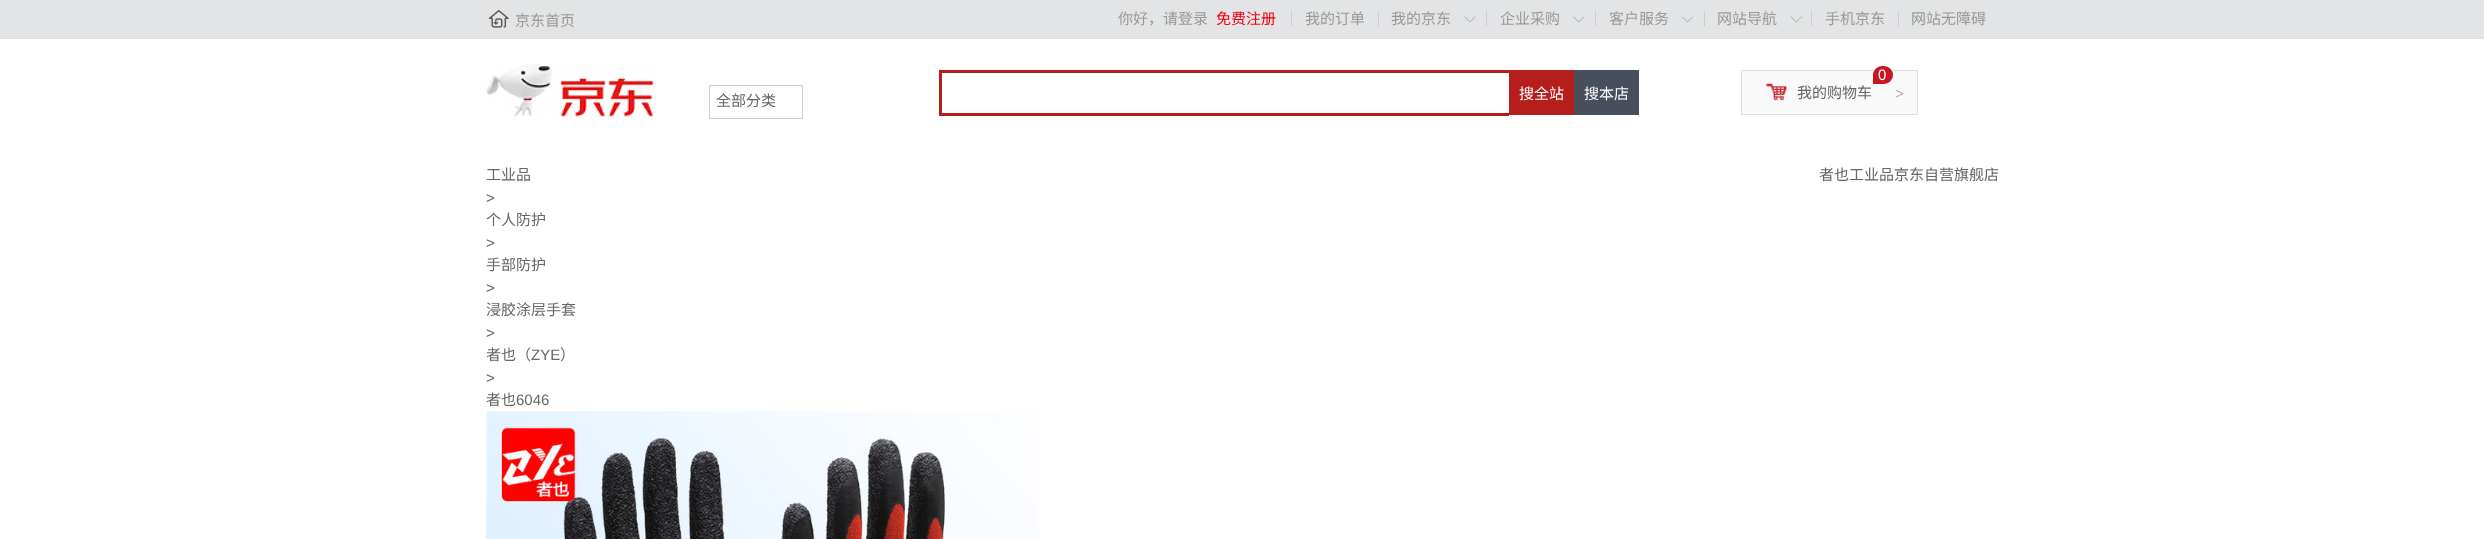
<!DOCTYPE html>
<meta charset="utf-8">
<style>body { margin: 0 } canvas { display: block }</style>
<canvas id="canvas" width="2484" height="539"></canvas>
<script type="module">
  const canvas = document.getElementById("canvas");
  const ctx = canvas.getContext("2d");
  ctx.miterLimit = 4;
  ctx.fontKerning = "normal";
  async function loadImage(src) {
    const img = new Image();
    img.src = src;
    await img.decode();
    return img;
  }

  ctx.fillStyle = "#ffffff";
  ctx.fillRect(0, 0, 2484, 539);
  ctx.fillStyle = "#e3e4e5";
  ctx.fillRect(0, 0, 2484, 38);
  ctx.fillStyle = "#dddddd";
  ctx.fillRect(0, 38, 2484, 1);
  ctx.drawImage(await loadImage("img1.png"), 488, 10, 21, 18);
  ctx.font = "15px Noto Sans CJK SC";
  ctx.fillStyle = "#999999";
  ctx.fillText("京东首页", 515, 26);
  ctx.fillText("你好，请登录", 1118, 24);
  ctx.fillStyle = "#f30213";
  ctx.fillText("免费注册", 1216, 24);
  ctx.fillStyle = "#cccccc";
  ctx.fillRect(1291, 11, 1, 15);
  ctx.fillStyle = "#999999";
  ctx.fillText("我的订单", 1305, 24);
  ctx.fillStyle = "#cccccc";
  ctx.fillRect(1378, 11, 1, 15);
  ctx.fillStyle = "#999999";
  ctx.fillText("我的京东", 1391, 24);
  ctx.drawImage(await loadImage("img2.png"), 1464, 16, 12, 6);
  ctx.fillStyle = "#cccccc";
  ctx.fillRect(1486, 11, 1, 15);
  ctx.fillStyle = "#999999";
  ctx.fillText("企业采购", 1500, 24);
  ctx.drawImage(await loadImage("img3.png"), 1573, 16, 12, 7);
  ctx.fillStyle = "#cccccc";
  ctx.fillRect(1595, 11, 1, 15);
  ctx.fillStyle = "#999999";
  ctx.fillText("客户服务", 1609, 24);
  ctx.drawImage(await loadImage("img4.png"), 1682, 16, 11, 7);
  ctx.fillStyle = "#cccccc";
  ctx.fillRect(1704, 11, 1, 15);
  ctx.fillStyle = "#999999";
  ctx.fillText("网站导航", 1717, 24);
  ctx.drawImage(await loadImage("img5.png"), 1790, 16, 12, 7);
  ctx.fillStyle = "#cccccc";
  ctx.fillRect(1811, 11, 1, 15);
  ctx.fillStyle = "#999999";
  ctx.fillText("手机京东", 1825, 24);
  ctx.fillStyle = "#cccccc";
  ctx.fillRect(1898, 11, 1, 15);
  ctx.fillStyle = "#999999";
  ctx.fillText("网站无障碍", 1911, 24);
  ctx.drawImage(await loadImage("img6.png"), 486, 64, 168, 53);
  ctx.strokeStyle = "#cccccc";
  ctx.strokeRect(709.5, 85.5, 93, 33);
  ctx.fillStyle = "#666666";
  ctx.fillText("全部分类", 716, 106);
  ctx.fillStyle = "#b61d1d";
  ctx.fillRect(939, 70, 570, 3);
  ctx.fillRect(939, 113, 570, 3);
  ctx.fillRect(939, 70, 3, 45);
  ctx.fillRect(1509, 70, 65, 45);
  ctx.fillStyle = "#ffffff";
  ctx.fillText("搜全站", 1519, 99);
  ctx.fillStyle = "#474e5c";
  ctx.fillRect(1574, 70, 65, 45);
  ctx.fillStyle = "#ffffff";
  ctx.fillText("搜本店", 1584, 99);
  ctx.fillStyle = "#f9f9f9";
  ctx.beginPath();
  ctx.rect(1741.5, 70.5, 176, 44);
  ctx.fill();
  ctx.strokeStyle = "#dfdfdf";
  ctx.stroke();
  ctx.fillStyle = "#c81623";
  ctx.beginPath();
  ctx.roundRect(1873, 66, 20, 18, [9, 9, 9, 0]);
  ctx.fill();
  ctx.font = "15px Liberation Sans";
  ctx.fillStyle = "#ffffff";
  ctx.fillText("0", 1878, 80);
  ctx.drawImage(await loadImage("img7.png"), 1766, 83, 21, 18);
  ctx.font = "15px Noto Sans CJK SC";
  ctx.fillStyle = "#666666";
  ctx.fillText("我的购物车", 1797, 98);
  ctx.font = "16px Liberation Serif";
  ctx.fillStyle = "#999999";
  ctx.fillText(">", 1895, 99);
  ctx.font = "15px Noto Sans CJK SC";
  ctx.fillStyle = "#666666";
  ctx.fillText("工业品", 486, 180);
  ctx.font = "15px Liberation Sans";
  ctx.fillText(">", 486, 203);
  ctx.font = "15px Noto Sans CJK SC";
  ctx.fillText("个人防护", 486, 225);
  ctx.font = "15px Liberation Sans";
  ctx.fillText(">", 486, 248);
  ctx.font = "15px Noto Sans CJK SC";
  ctx.fillText("手部防护", 486, 270);
  ctx.font = "15px Liberation Sans";
  ctx.fillText(">", 486, 293);
  ctx.font = "15px Noto Sans CJK SC";
  ctx.fillText("浸胶涂层手套", 486, 315);
  ctx.font = "15px Liberation Sans";
  ctx.fillText(">", 486, 338);
  ctx.font = "15px Noto Sans CJK SC";
  ctx.fillText("者也（", 486, 360);
  ctx.font = "15px Liberation Sans";
  ctx.fillText("ZYE", 531, 360);
  ctx.font = "15px Noto Sans CJK SC";
  ctx.fillText("）", 560, 360);
  ctx.font = "15px Liberation Sans";
  ctx.fillText(">", 486, 383);
  ctx.font = "15px Noto Sans CJK SC";
  ctx.fillText("者也", 486, 405);
  ctx.font = "15px Liberation Sans";
  ctx.fillText("6046", 516, 405);
  ctx.font = "15px Noto Sans CJK SC";
  ctx.fillText("者也工业品京东自营旗舰店", 1819, 180);
  ctx.drawImage(await loadImage("img8.png"), 486, 411, 553, 128);
</script>
